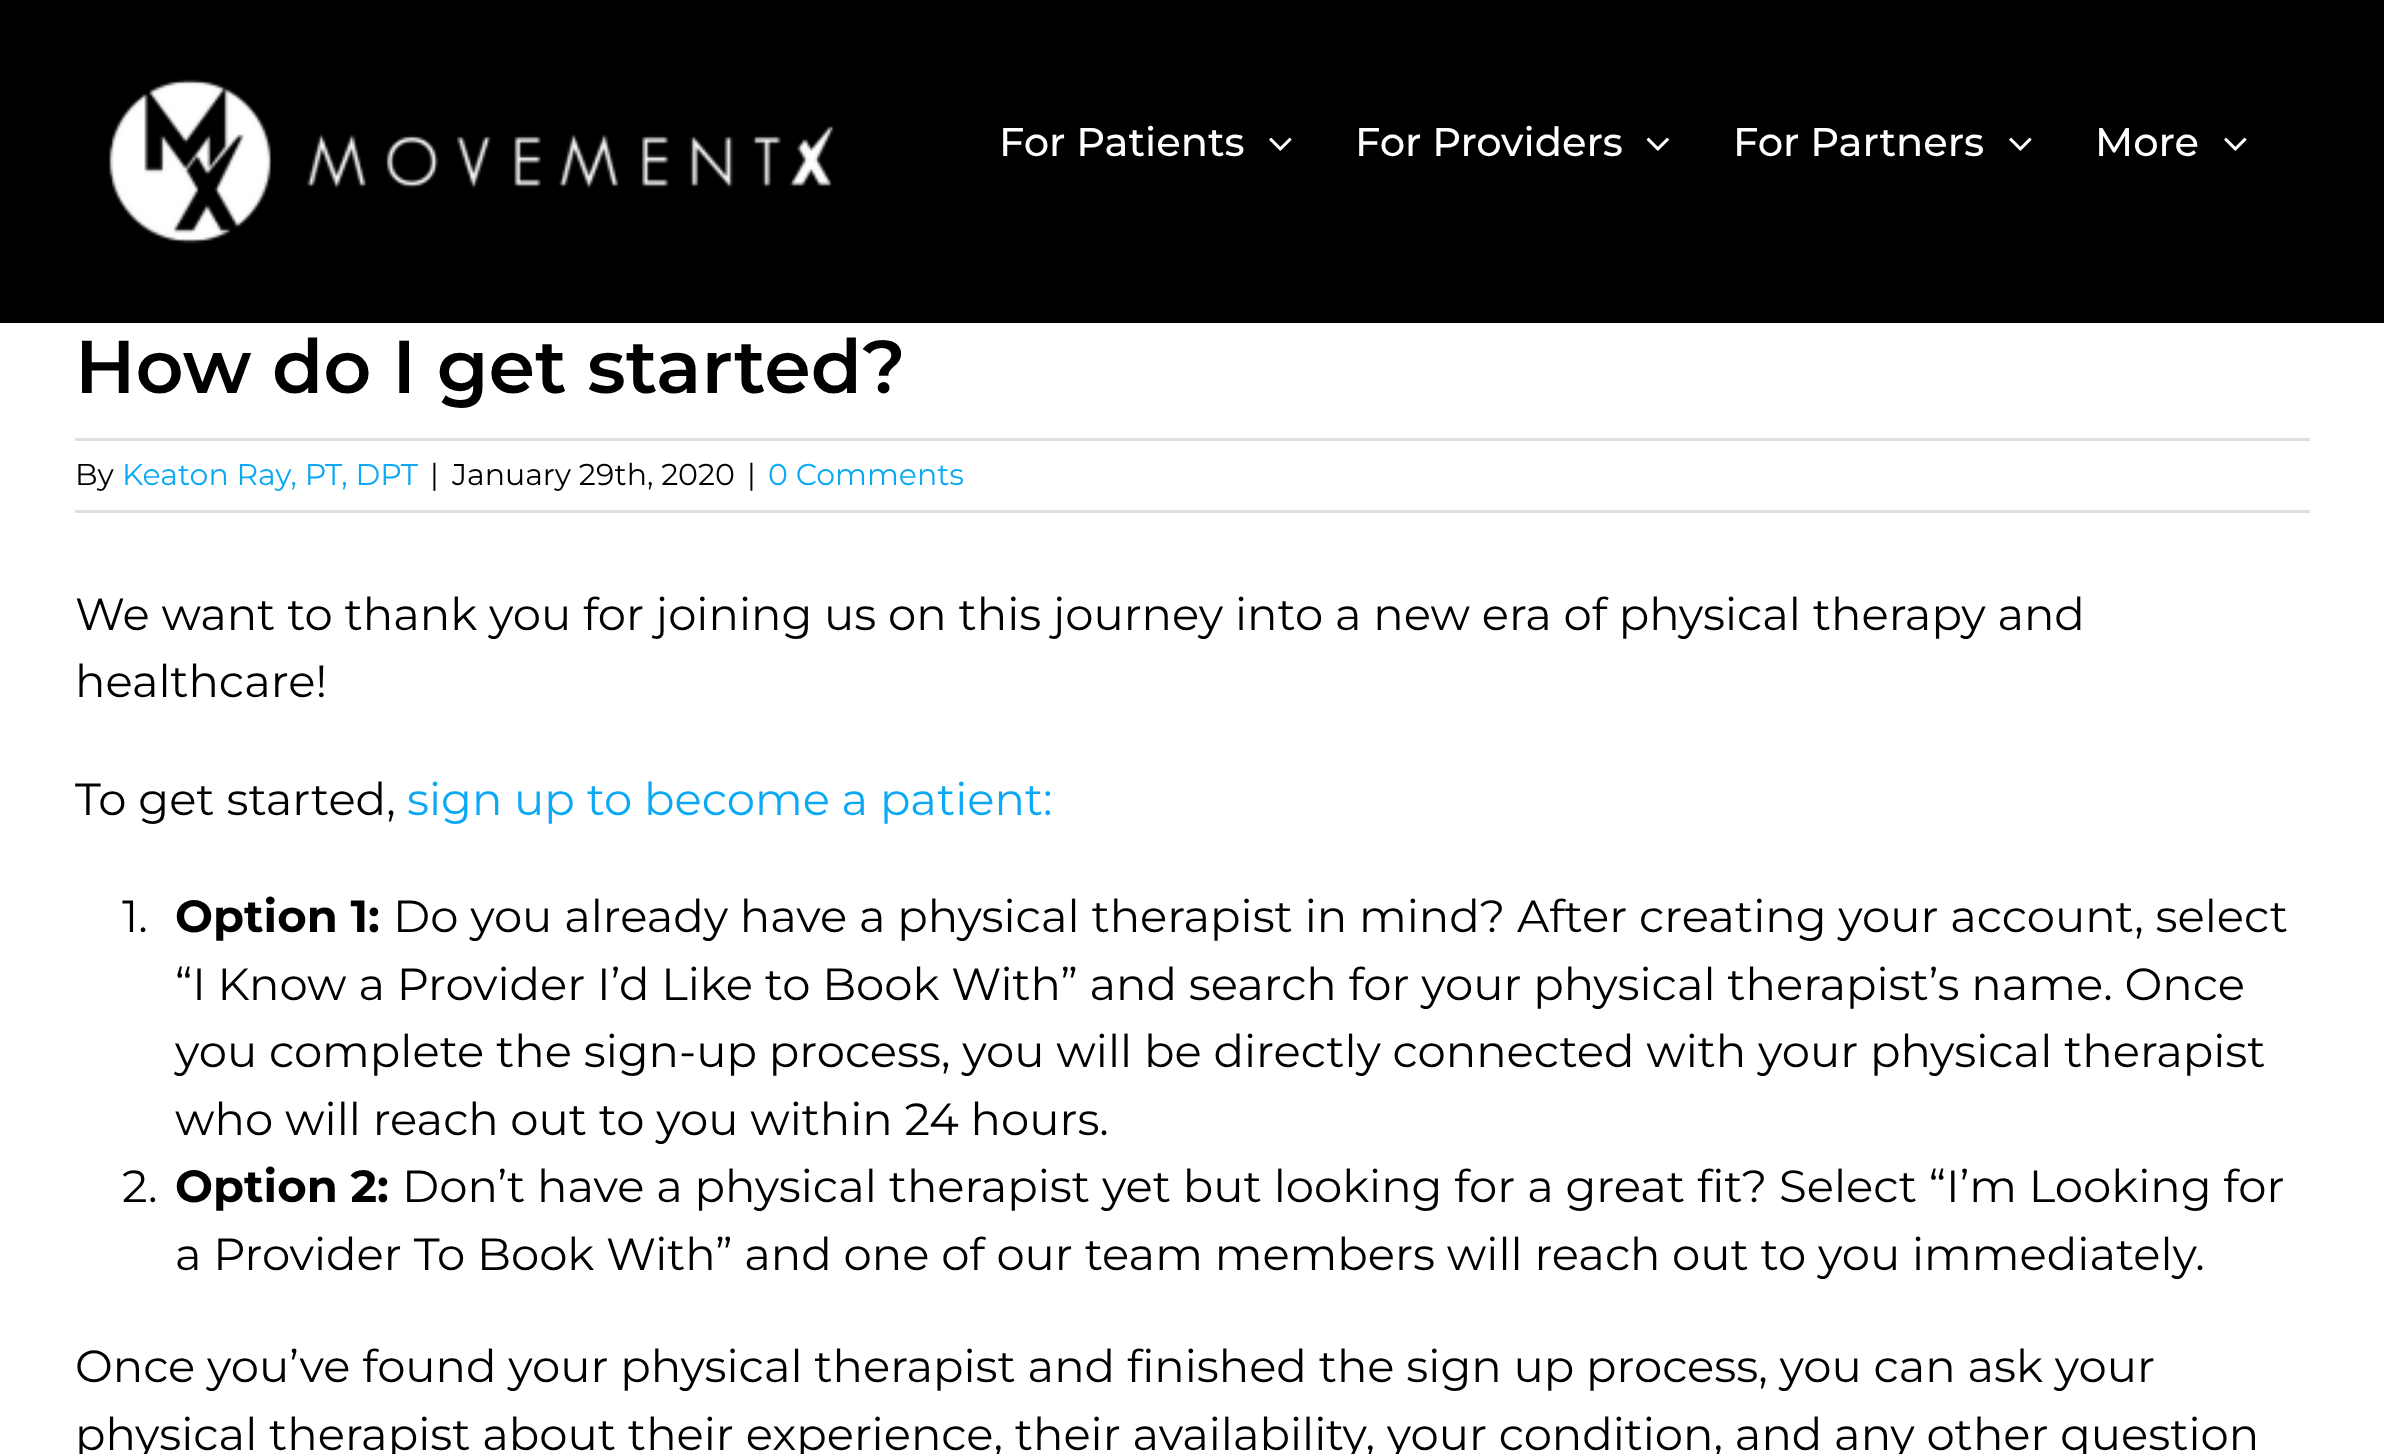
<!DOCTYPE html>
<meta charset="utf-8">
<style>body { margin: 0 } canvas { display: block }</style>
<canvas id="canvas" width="2384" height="1454"></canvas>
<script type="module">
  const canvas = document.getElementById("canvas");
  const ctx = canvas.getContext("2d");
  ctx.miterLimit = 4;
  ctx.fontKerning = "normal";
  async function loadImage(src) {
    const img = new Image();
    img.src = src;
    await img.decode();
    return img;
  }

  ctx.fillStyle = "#ffffff";
  ctx.fillRect(0, 0, 2384, 1454);
  ctx.fillStyle = "#000000";
  ctx.fillRect(0, 0, 2384, 323);
  ctx.drawImage(await loadImage("img1.png"), 109, 79, 725, 165);
  ctx.font = "500 40px Montserrat";
  ctx.fillStyle = "#ffffff";
  ctx.fillText("For Patients", 999, 156);
  ctx.drawImage(await loadImage("img2.png"), 1269, 137, 23, 14);
  ctx.fillText("For Providers", 1355, 156);
  ctx.drawImage(await loadImage("img3.png"), 1646, 137, 23, 14);
  ctx.fillText("For Partners", 1733, 156);
  ctx.drawImage(await loadImage("img2.png"), 2009, 137, 23, 14);
  ctx.fillText("More", 2095, 156);
  ctx.drawImage(await loadImage("img2.png"), 2224, 137, 23, 14);
  ctx.font = "600 74.75px Montserrat";
  ctx.fillStyle = "#000000";
  ctx.fillText("How do I get started?", 75, 393);
  ctx.fillStyle = "#e0dede";
  ctx.fillRect(75, 438, 2235, 3);
  ctx.fillRect(75, 510, 2235, 3);
  ctx.font = "30px Montserrat";
  ctx.fillStyle = "#000000";
  ctx.fillText("By", 75, 485);
  ctx.fillStyle = "#0ba9f5";
  ctx.fillText("Keaton Ray, PT, DPT", 122, 485);
  ctx.fillStyle = "#000000";
  ctx.fillText("|", 430, 485);
  ctx.fillText("January 29th, 2020", 452, 485);
  ctx.fillText("|", 747, 485);
  ctx.fillStyle = "#0ba9f5";
  ctx.fillText("0 Comments", 768, 485);
  ctx.font = "45px Montserrat";
  ctx.fillStyle = "#000000";
  ctx.fillText("We want to thank you for joining us on this journey into a new era of physical therapy and", 75, 630);
  ctx.fillText("healthcare!", 75, 697);
  ctx.fillText("To get started,", 75, 815);
  ctx.fillStyle = "#0ba9f5";
  ctx.fillText("sign up to become a patient:", 407, 815);
  ctx.fillStyle = "#000000";
  ctx.fillText("1.", 122, 932);
  ctx.font = "bold 45px Montserrat";
  ctx.fillText("Option 1:", 175, 932);
  ctx.font = "45px Montserrat";
  ctx.fillText("Do you already have a physical therapist in mind? After creating your account, select", 393, 932);
  ctx.fillText("“I Know a Provider I’d Like to Book With” and search for your physical therapist’s name. Once", 175, 1000);
  ctx.fillText("you complete the sign-up process, you will be directly connected with your physical therapist", 175, 1067);
  ctx.fillText("who will reach out to you within 24 hours.", 175, 1135);
  ctx.fillText("2.", 122, 1202);
  ctx.font = "bold 45px Montserrat";
  ctx.fillText("Option 2:", 175, 1202);
  ctx.font = "45px Montserrat";
  ctx.fillText("Don’t have a physical therapist yet but looking for a great fit? Select “I’m Looking for", 402, 1202);
  ctx.fillText("a Provider To Book With” and one of our team members will reach out to you immediately.", 175, 1270);
  ctx.fillText("Once you’ve found your physical therapist and finished the sign up process, you can ask your", 75, 1382);
  ctx.fillText("physical therapist about their experience, their availability, your condition, and any other question", 75, 1450);
</script>
